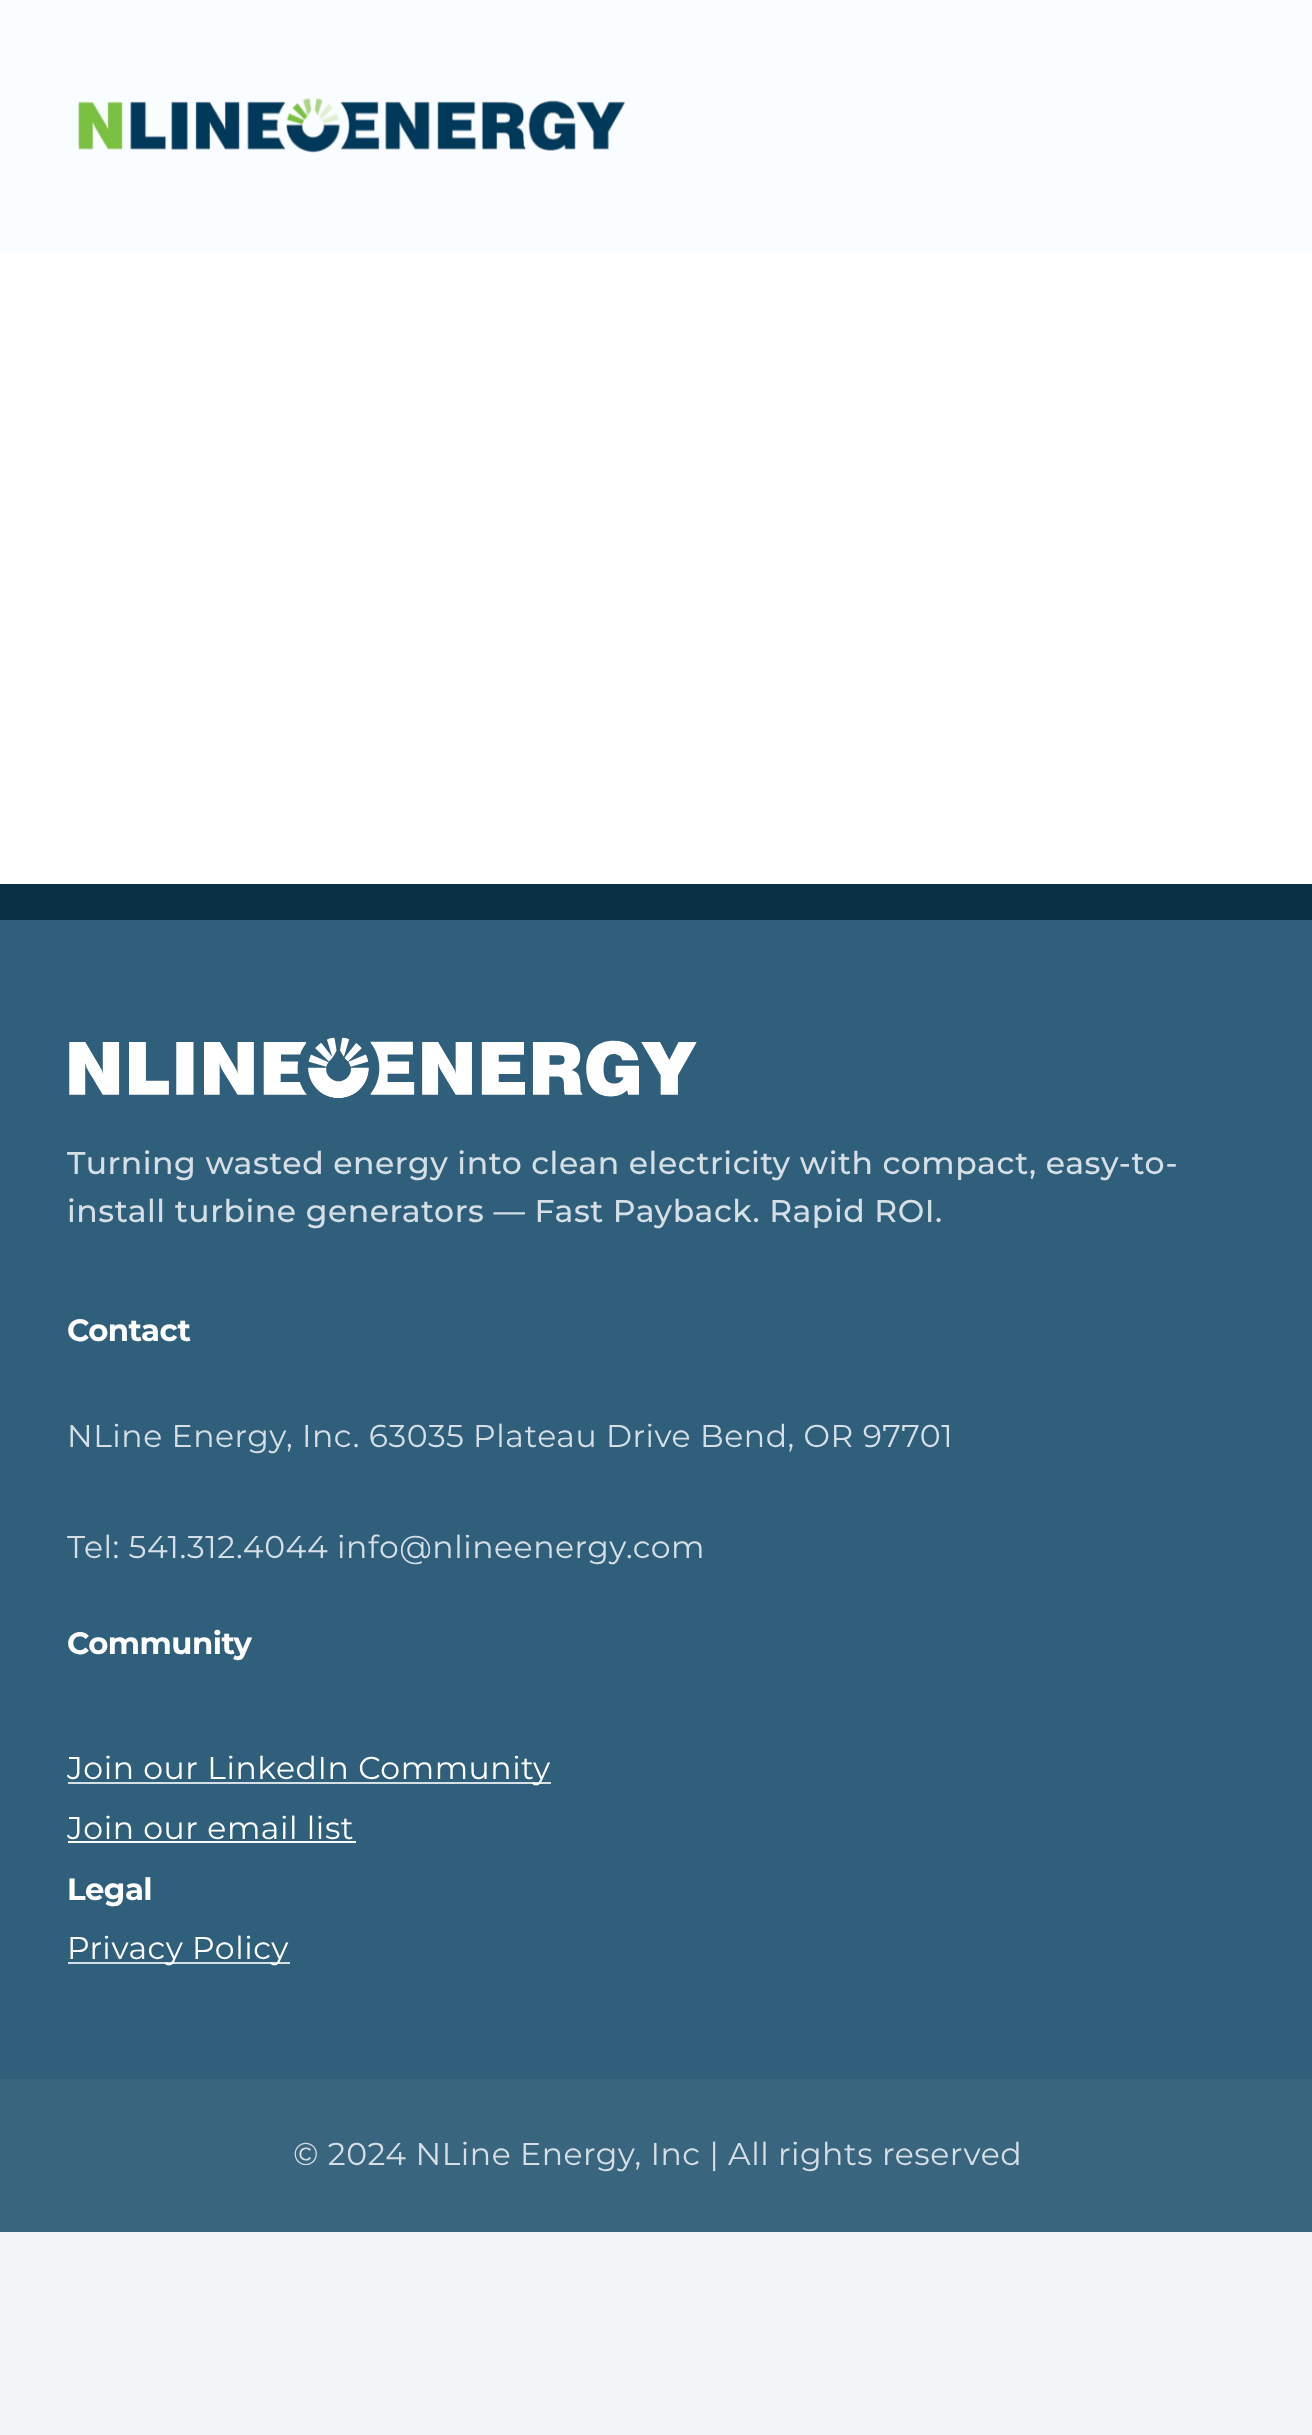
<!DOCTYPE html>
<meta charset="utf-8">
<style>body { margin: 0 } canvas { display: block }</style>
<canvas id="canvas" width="1312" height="2435"></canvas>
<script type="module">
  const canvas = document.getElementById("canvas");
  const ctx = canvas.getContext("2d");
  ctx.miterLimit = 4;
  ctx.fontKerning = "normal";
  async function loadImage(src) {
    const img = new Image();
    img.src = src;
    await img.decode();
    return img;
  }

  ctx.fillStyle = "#f2f3f5";
  ctx.fillRect(0, 0, 1312, 2435);
  ctx.fillStyle = "#ffffff";
  ctx.fillRect(0, 252, 1312, 632);
  ctx.fillStyle = "#fafdff";
  ctx.fillRect(0, 0, 1312, 252);
  ctx.drawImage(await loadImage("img1.png"), 78, 98, 548, 55);
  ctx.fillStyle = "#305f7c";
  ctx.fillRect(0, 920, 1312, 1159);
  ctx.fillStyle = "#093043";
  ctx.fillRect(0, 884, 1312, 36);
  ctx.drawImage(await loadImage("img2.png"), 69, 1037, 628, 61);
  ctx.letterSpacing = "0.55px";
  ctx.font = "500 31.5px Montserrat";
  ctx.fillStyle = "#d6dfe5";
  ctx.fillText("Turning wasted energy into clean electricity with compact, easy-to-", 67, 1174);
  ctx.fillText("install turbine generators — Fast Payback. Rapid ROI.", 67, 1222);
  ctx.letterSpacing = "-0.5px";
  ctx.font = "bold 30.75px Montserrat";
  ctx.fillStyle = "#ffffff";
  ctx.fillText("Contact", 67, 1341);
  ctx.letterSpacing = "0.55px";
  ctx.font = "31.5px Montserrat";
  ctx.fillStyle = "#d6dfe5";
  ctx.fillText("NLine Energy, Inc. 63035 Plateau Drive Bend, OR 97701", 67, 1447);
  ctx.fillText("Tel: 541.312.4044 info@nlineenergy.com", 67, 1558);
  ctx.letterSpacing = "-0.5px";
  ctx.font = "bold 30.75px Montserrat";
  ctx.fillStyle = "#ffffff";
  ctx.fillText("Community", 67, 1654);
  ctx.fillStyle = "#d6dfe5";
  ctx.fillRect(68, 1782, 483, 2);
  ctx.letterSpacing = "0.55px";
  ctx.font = "31.5px Montserrat";
  ctx.fillStyle = "#ffffff";
  ctx.fillText("Join our LinkedIn Community", 67, 1779);
  ctx.fillText("Join our email list", 67, 1839);
  ctx.fillRect(68, 1841, 288, 2);
  ctx.letterSpacing = "-0.5px";
  ctx.font = "bold 30.75px Montserrat";
  ctx.fillText("Legal", 67, 1900);
  ctx.fillStyle = "#d6dfe5";
  ctx.fillRect(68, 1962, 222, 2);
  ctx.letterSpacing = "0.55px";
  ctx.font = "31.5px Montserrat";
  ctx.fillStyle = "#ffffff";
  ctx.fillText("Privacy Policy", 67, 1959);
  ctx.fillStyle = "#3a657e";
  ctx.fillRect(0, 2079, 1312, 153);
  ctx.fillStyle = "#d6dfe5";
  ctx.fillText("© 2024 NLine Energy, Inc | All rights reserved", 293, 2165);
</script>
